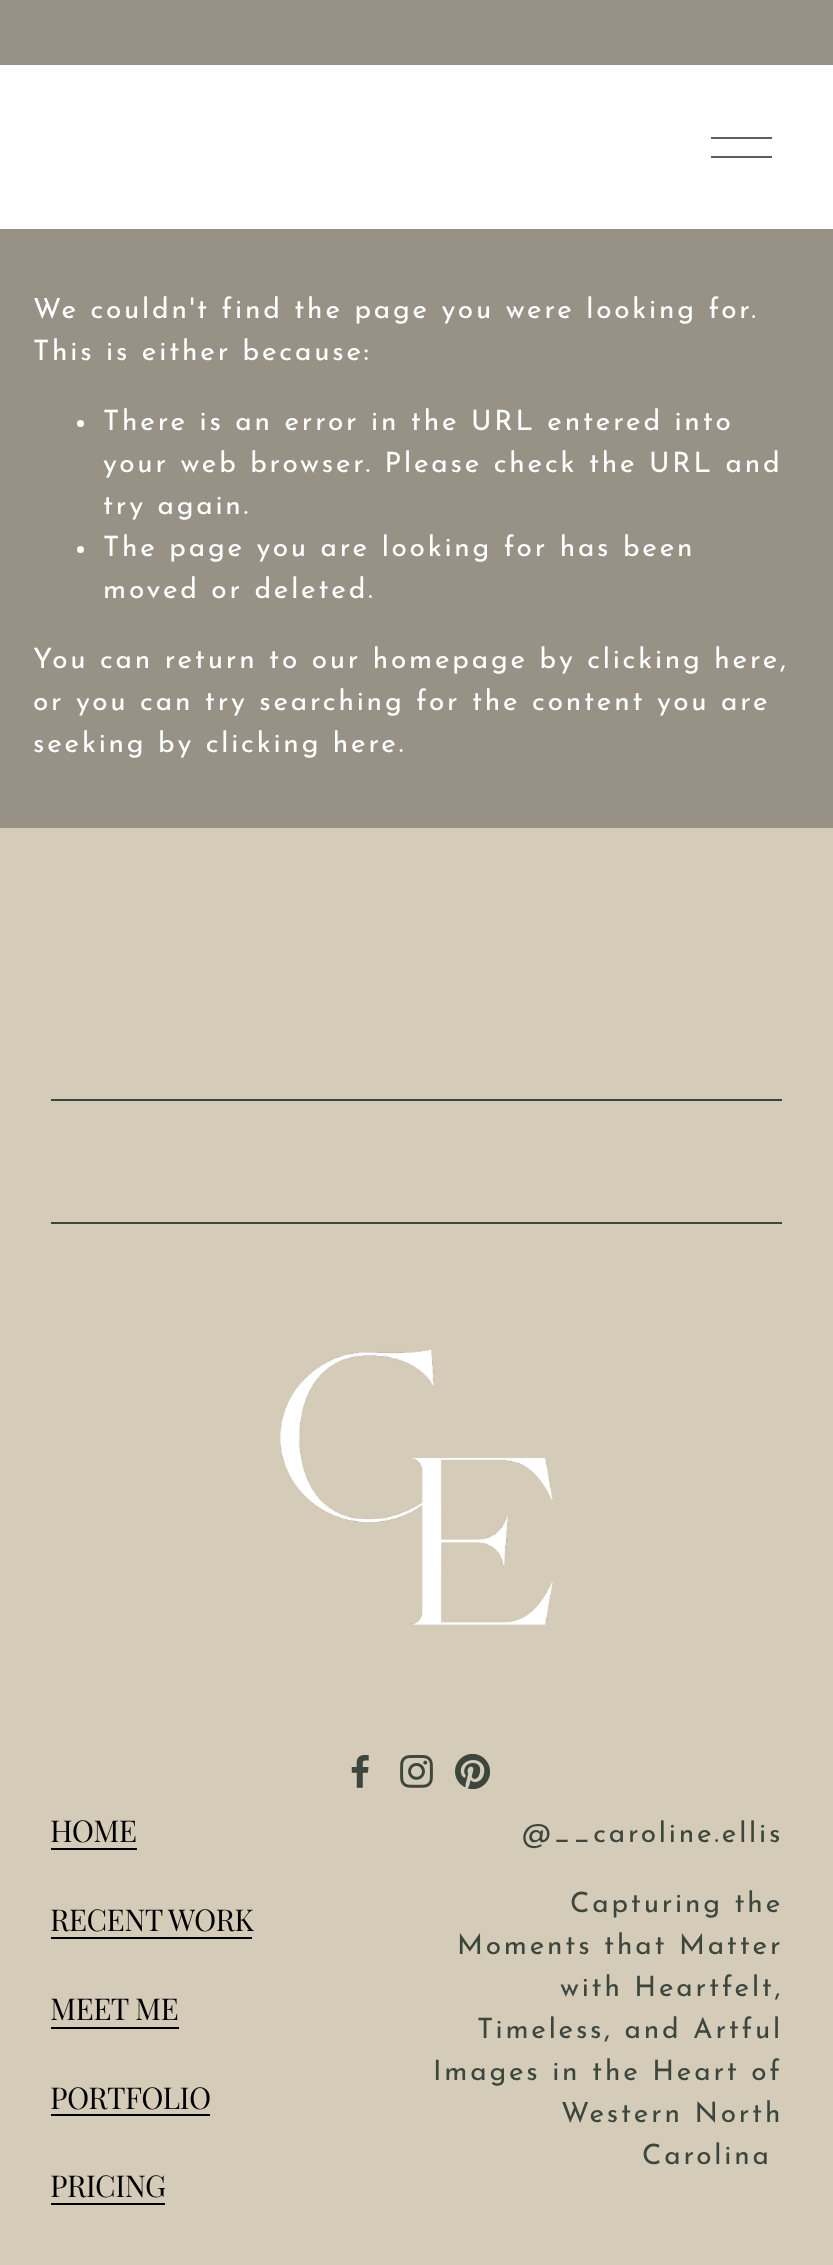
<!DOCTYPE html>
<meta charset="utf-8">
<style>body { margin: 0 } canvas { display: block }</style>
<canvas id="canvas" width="833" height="2265"></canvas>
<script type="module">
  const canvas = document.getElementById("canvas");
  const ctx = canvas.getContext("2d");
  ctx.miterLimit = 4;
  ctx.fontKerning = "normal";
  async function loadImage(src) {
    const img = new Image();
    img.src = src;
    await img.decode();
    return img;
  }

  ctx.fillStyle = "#979285";
  ctx.fillRect(0, 0, 833, 2265);
  ctx.fillStyle = "#ffffff";
  ctx.fillRect(0, 65, 833, 164);
  ctx.fillStyle = "#596259";
  ctx.fillRect(711, 137, 61, 2);
  ctx.fillRect(711, 156, 61, 2);
  ctx.letterSpacing = "2.8px";
  ctx.font = "28px Josefin Sans";
  ctx.fillStyle = "#ffffff";
  ctx.fillText("We couldn't find the page you were looking for.", 33, 318);
  ctx.fillText("This is either because:", 33, 360);
  ctx.beginPath();
  ctx.arc(80.5, 423.5, 3.5, 0, Math.PI * 2);
  ctx.fill();
  ctx.fillText("There is an error in the URL entered into", 103, 430);
  ctx.fillText("your web browser. Please check the URL and", 103, 472);
  ctx.fillText("try again.", 103, 514);
  ctx.beginPath();
  ctx.arc(80.5, 549.5, 3.5, 0, Math.PI * 2);
  ctx.fill();
  ctx.fillText("The page you are looking for has been", 103, 556);
  ctx.fillText("moved or deleted.", 103, 598);
  ctx.fillText("You can return to our homepage by clicking here,", 33, 668);
  ctx.fillText("or you can try searching for the content you are", 33, 710);
  ctx.fillText("seeking by clicking here.", 33, 752);
  ctx.fillStyle = "#d4cbb9";
  ctx.fillRect(0, 828, 833, 1437);
  ctx.fillStyle = "#3c463c";
  ctx.fillRect(51, 1099, 731, 2);
  ctx.fillRect(51, 1222, 731, 2);
  ctx.drawImage(await loadImage("img1.png"), 280, 1349, 273, 276);
  ctx.drawImage(await loadImage("img2.png"), 351, 1755, 18, 33);
  ctx.drawImage(await loadImage("img3.png"), 400, 1755, 33, 33);
  ctx.drawImage(await loadImage("img4.png"), 455, 1754, 35, 35);
  ctx.letterSpacing = "-0.6px";
  ctx.font = "30px Playfair Display";
  ctx.fillStyle = "#000000";
  ctx.fillText("HOME", 50, 1842);
  ctx.fillRect(51, 1848, 86, 2);
  ctx.fillText("RECENT WORK", 50, 1931);
  ctx.fillRect(51, 1937, 201, 2);
  ctx.fillText("MEET ME", 50, 2020);
  ctx.fillRect(51, 2027, 128, 2);
  ctx.fillText("PORTFOLIO", 50, 2109);
  ctx.fillRect(51, 2114, 159, 2);
  ctx.fillText("PRICING", 50, 2197);
  ctx.fillRect(51, 2203, 114, 2);
  ctx.letterSpacing = "2.8px";
  ctx.font = "28px Josefin Sans";
  ctx.fillStyle = "#3c463c";
  ctx.fillText("@__caroline.ellis", 522, 1842);
  ctx.fillText("Capturing the", 570, 1912);
  ctx.fillText("Moments that Matter", 457, 1954);
  ctx.fillText("with Heartfelt,", 560, 1996);
  ctx.fillText("Timeless, and Artful", 477, 2038);
  ctx.fillText("Images in the Heart of", 433, 2080);
  ctx.fillText("Western North", 561, 2122);
  ctx.fillText("Carolina", 642, 2164);
</script>
